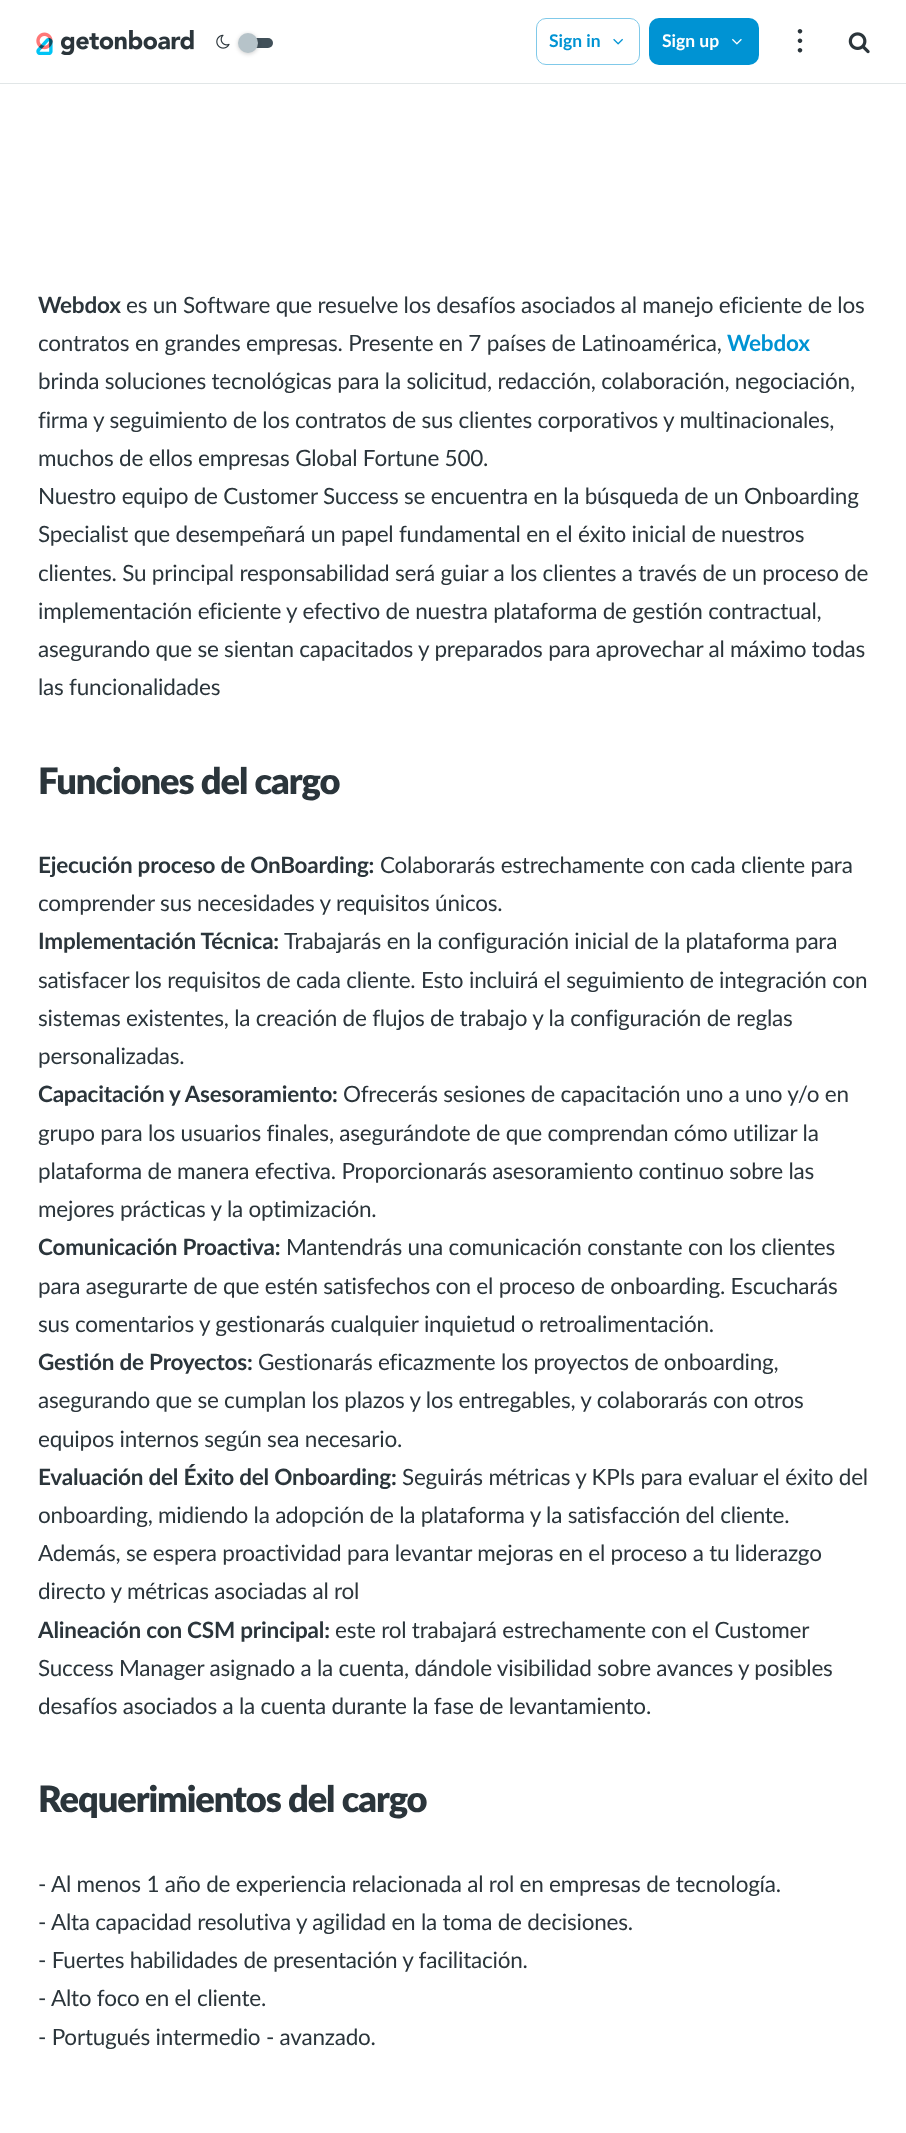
<!DOCTYPE html>
<meta charset="utf-8">
<style>body { margin: 0 } canvas { display: block }</style>
<canvas id="canvas" width="906" height="2133"></canvas>
<script type="module">
  const canvas = document.getElementById("canvas");
  const ctx = canvas.getContext("2d");
  ctx.miterLimit = 4;
  ctx.fontKerning = "normal";
  async function loadImage(src) {
    const img = new Image();
    img.src = src;
    await img.decode();
    return img;
  }

  ctx.fillStyle = "#ffffff";
  ctx.fillRect(0, 0, 906, 2133);
  ctx.fillStyle = "#e1e6e7";
  ctx.fillRect(0, 83, 906, 1);
  ctx.drawImage(await loadImage("img1.png"), 36, 30, 158, 25);
  ctx.drawImage(await loadImage("img2.png"), 216, 34, 14, 15);
  ctx.fillStyle = "#415059";
  ctx.beginPath();
  ctx.roundRect(248, 38, 25, 10, 5);
  ctx.fill();
  ctx.fillStyle = "rgba(0, 0, 0, 0.2)";
  ctx.filter = "blur(2px)";
  ctx.beginPath();
  ctx.roundRect(238, 34, 20, 20, 10);
  ctx.fill();
  ctx.filter = "none";
  ctx.fillStyle = "#b6c3c9";
  ctx.beginPath();
  ctx.arc(248, 43, 10, 0, Math.PI * 2);
  ctx.fill();
  ctx.beginPath();
  ctx.roundRect(536.5, 18.5, 103, 46, 9.5);
  ctx.strokeStyle = "#80c9e9";
  ctx.stroke();
  ctx.font = "bold 17.5px Lato";
  ctx.fillStyle = "#0093d3";
  ctx.fillText("Sign in", 549, 47);
  ctx.drawImage(await loadImage("img3.png"), 613, 38, 10, 7);
  ctx.beginPath();
  ctx.roundRect(649, 18, 110, 47, 10);
  ctx.fill();
  ctx.fillStyle = "#ffffff";
  ctx.fillText("Sign up", 662, 47);
  ctx.drawImage(await loadImage("img4.png"), 732, 38, 10, 7);
  ctx.letterSpacing = "1px";
  ctx.font = "36px Lato";
  ctx.fillStyle = "#2b353b";
  ctx.save();
  ctx.translate(798, 27);
  ctx.rotate(90 * Math.PI / 180);
  ctx.fillText("...", 0, 0);
  ctx.restore();
  ctx.drawImage(await loadImage("img5.png"), 848, 32, 22, 22);
  ctx.letterSpacing = "-0.22px";
  ctx.font = "bold 22.5px Lato";
  ctx.fillText("Webdox", 38, 313);
  ctx.font = "22.5px Lato";
  ctx.fillText("es un Software que resuelve los desafíos asociados al manejo eficiente de los", 126, 313);
  ctx.fillText("contratos en grandes empresas. Presente en 7 países de Latinoamérica,", 38, 351);
  ctx.font = "bold 22.5px Lato";
  ctx.fillStyle = "#0093d3";
  ctx.fillText("Webdox", 727, 351);
  ctx.font = "22.5px Lato";
  ctx.fillStyle = "#2b353b";
  ctx.fillText("brinda soluciones tecnológicas para la solicitud, redacción, colaboración, negociación,", 38, 389);
  ctx.fillText("firma y seguimiento de los contratos de sus clientes corporativos y multinacionales,", 38, 428);
  ctx.fillText("muchos de ellos empresas Global Fortune 500.", 38, 466);
  ctx.fillText("Nuestro equipo de Customer Success se encuentra en la búsqueda de un Onboarding", 38, 504);
  ctx.fillText("Specialist que desempeñará un papel fundamental en el éxito inicial de nuestros", 38, 542);
  ctx.fillText("clientes. Su principal responsabilidad será guiar a los clientes a través de un proceso de", 38, 581);
  ctx.fillText("implementación eficiente y efectivo de nuestra plataforma de gestión contractual,", 38, 619);
  ctx.fillText("asegurando que se sientan capacitados y preparados para aprovechar al máximo todas", 38, 657);
  ctx.fillText("las funcionalidades", 38, 695);
  ctx.letterSpacing = "-1.1px";
  ctx.font = "900 36.25px Lato";
  ctx.fillText("Funciones del cargo", 38, 794);
  ctx.letterSpacing = "-0.22px";
  ctx.font = "bold 22.5px Lato";
  ctx.fillText("Ejecución proceso de OnBoarding:", 38, 873);
  ctx.font = "22.5px Lato";
  ctx.fillText("Colaborarás estrechamente con cada cliente para", 380, 873);
  ctx.fillText("comprender sus necesidades y requisitos únicos.", 38, 911);
  ctx.font = "bold 22.5px Lato";
  ctx.fillText("Implementación Técnica:", 38, 949);
  ctx.font = "22.5px Lato";
  ctx.fillText("Trabajarás en la configuración inicial de la plataforma para", 284, 949);
  ctx.fillText("satisfacer los requisitos de cada cliente. Esto incluirá el seguimiento de integración con", 38, 988);
  ctx.fillText("sistemas existentes, la creación de flujos de trabajo y la configuración de reglas", 38, 1026);
  ctx.fillText("personalizadas.", 38, 1064);
  ctx.font = "bold 22.5px Lato";
  ctx.fillText("Capacitación y Asesoramiento:", 38, 1102);
  ctx.font = "22.5px Lato";
  ctx.fillText("Ofrecerás sesiones de capacitación uno a uno y/o en", 343, 1102);
  ctx.fillText("grupo para los usuarios finales, asegurándote de que comprendan cómo utilizar la", 38, 1141);
  ctx.fillText("plataforma de manera efectiva. Proporcionarás asesoramiento continuo sobre las", 38, 1179);
  ctx.fillText("mejores prácticas y la optimización.", 38, 1217);
  ctx.font = "bold 22.5px Lato";
  ctx.fillText("Comunicación Proactiva:", 38, 1255);
  ctx.font = "22.5px Lato";
  ctx.fillText("Mantendrás una comunicación constante con los clientes", 286, 1255);
  ctx.fillText("para asegurarte de que estén satisfechos con el proceso de onboarding. Escucharás", 38, 1294);
  ctx.fillText("sus comentarios y gestionarás cualquier inquietud o retroalimentación.", 38, 1332);
  ctx.font = "bold 22.5px Lato";
  ctx.fillText("Gestión de Proyectos:", 38, 1370);
  ctx.font = "22.5px Lato";
  ctx.fillText("Gestionarás eficazmente los proyectos de onboarding,", 258, 1370);
  ctx.fillText("asegurando que se cumplan los plazos y los entregables, y colaborarás con otros", 38, 1408);
  ctx.fillText("equipos internos según sea necesario.", 38, 1447);
  ctx.font = "bold 22.5px Lato";
  ctx.fillText("Evaluación del Éxito del Onboarding:", 38, 1485);
  ctx.font = "22.5px Lato";
  ctx.fillText("Seguirás métricas y KPIs para evaluar el éxito del", 402, 1485);
  ctx.fillText("onboarding, midiendo la adopción de la plataforma y la satisfacción del cliente.", 38, 1523);
  ctx.fillText("Además, se espera proactividad para levantar mejoras en el proceso a tu liderazgo", 38, 1561);
  ctx.fillText("directo y métricas asociadas al rol", 38, 1599);
  ctx.font = "bold 22.5px Lato";
  ctx.fillText("Alineación con CSM principal:", 38, 1638);
  ctx.font = "22.5px Lato";
  ctx.fillText("este rol trabajará estrechamente con el Customer", 335, 1638);
  ctx.fillText("Success Manager asignado a la cuenta, dándole visibilidad sobre avances y posibles", 38, 1676);
  ctx.fillText("desafíos asociados a la cuenta durante la fase de levantamiento.", 38, 1714);
  ctx.letterSpacing = "-1.1px";
  ctx.font = "900 36.25px Lato";
  ctx.fillText("Requerimientos del cargo", 38, 1812);
  ctx.letterSpacing = "-0.22px";
  ctx.font = "22.5px Lato";
  ctx.fillText("- Al menos 1 año de experiencia relacionada al rol en empresas de tecnología.", 38, 1892);
  ctx.fillText("- Alta capacidad resolutiva y agilidad en la toma de decisiones.", 38, 1930);
  ctx.fillText("- Fuertes habilidades de presentación y facilitación.", 38, 1968);
  ctx.fillText("- Alto foco en el cliente.", 38, 2006);
  ctx.fillText("- Portugués intermedio - avanzado.", 38, 2045);
</script>
